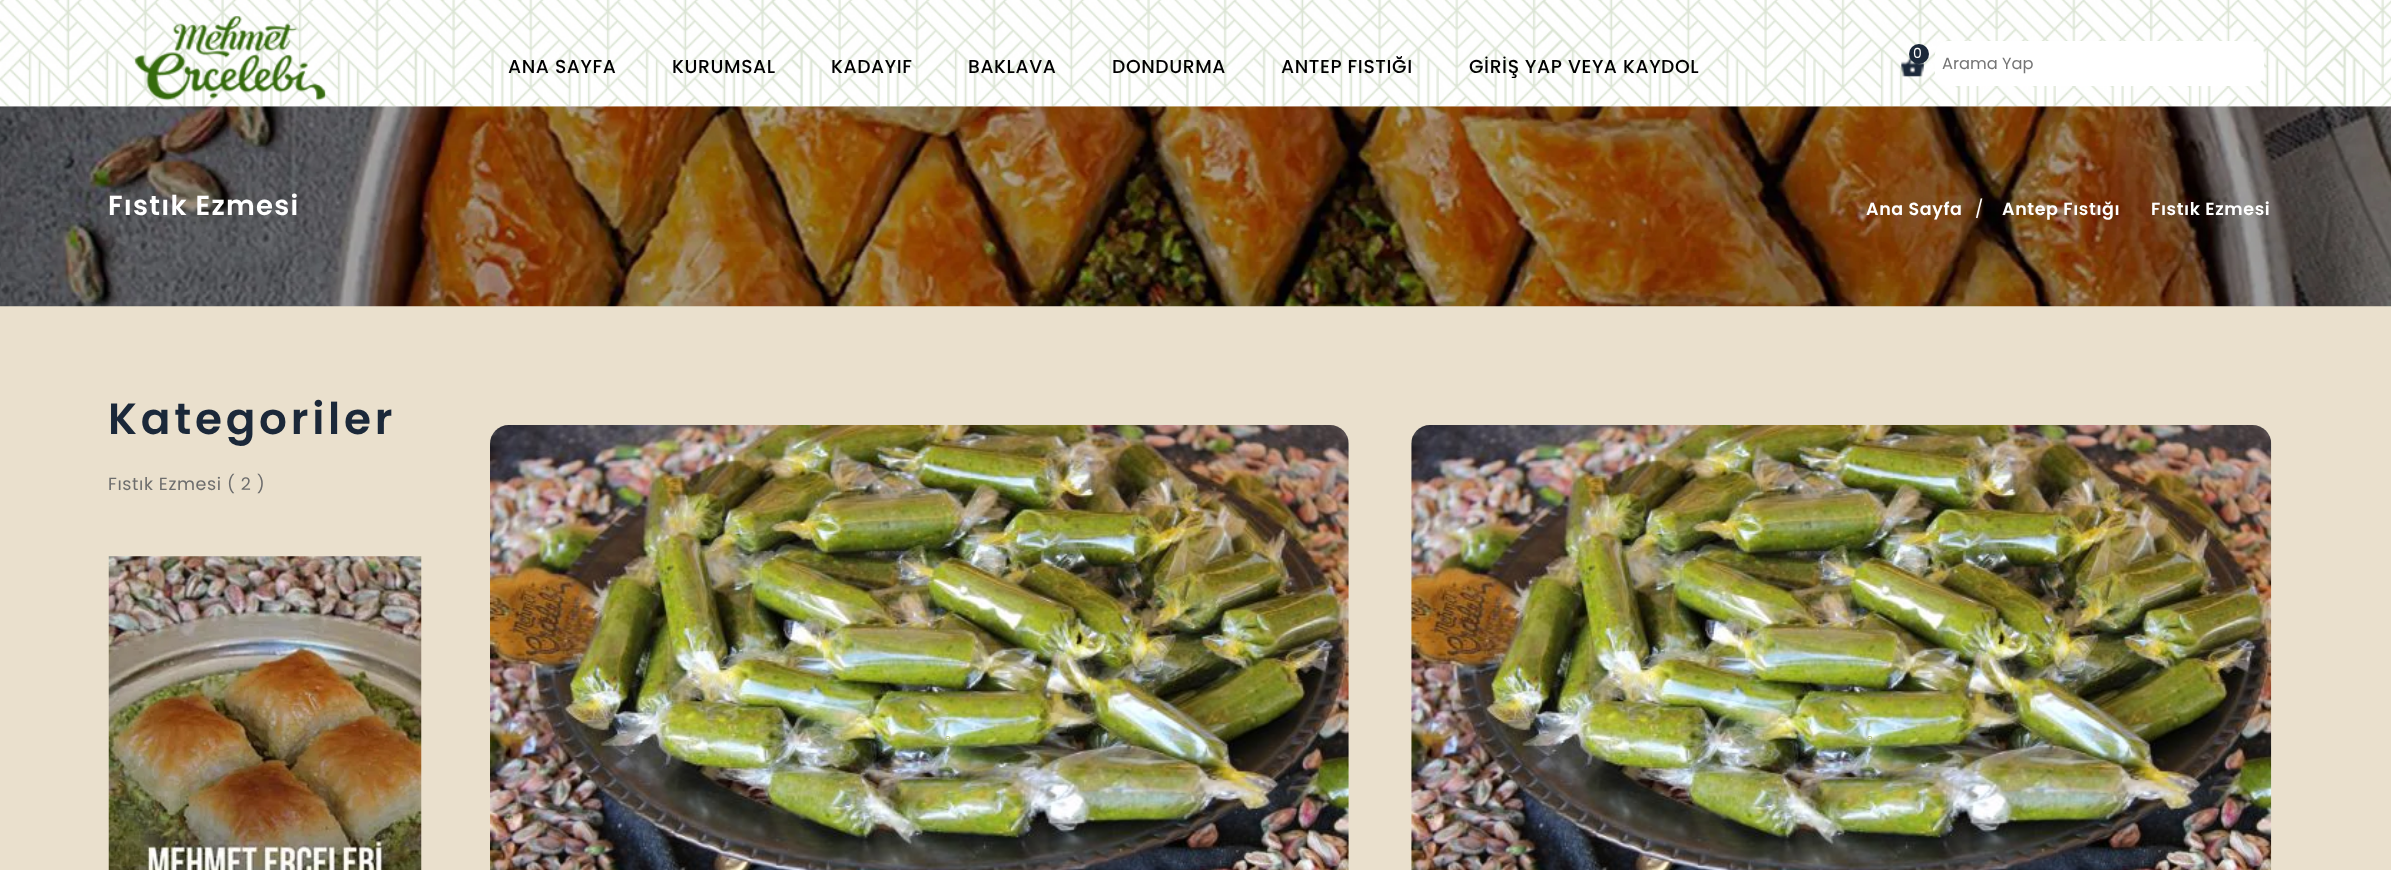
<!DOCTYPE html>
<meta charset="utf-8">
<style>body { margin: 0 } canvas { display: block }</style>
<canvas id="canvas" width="2391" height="870"></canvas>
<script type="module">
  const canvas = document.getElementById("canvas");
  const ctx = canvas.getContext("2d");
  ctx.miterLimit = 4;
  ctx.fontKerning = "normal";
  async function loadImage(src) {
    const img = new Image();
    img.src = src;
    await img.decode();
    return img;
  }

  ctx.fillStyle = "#ffffff";
  ctx.fillRect(0, 0, 2391, 870);
  ctx.fillStyle = "#eae0cd";
  ctx.fillRect(0, 306, 2391, 564);
  ctx.drawImage(await loadImage("img4.png"), 0, 106, 2391, 201);
  ctx.drawImage(await loadImage("img1.png"), 0, 0, 2391, 107);
  ctx.drawImage(await loadImage("img2.png"), 134, 16, 192, 85);
  ctx.letterSpacing = "0.6px";
  ctx.font = "500 18.75px Poppins";
  ctx.fillStyle = "#000000";
  ctx.fillText("ANA SAYFA", 508, 73);
  ctx.fillText("KURUMSAL", 672, 73);
  ctx.fillText("KADAYIF", 831, 73);
  ctx.fillText("BAKLAVA", 968, 73);
  ctx.fillText("DONDURMA", 1112, 73);
  ctx.fillText("ANTEP FISTIĞI", 1281, 73);
  ctx.fillText("GİRİŞ YAP VEYA KAYDOL", 1469, 73);
  ctx.drawImage(await loadImage("img3.png"), 1901, 56, 23, 21);
  ctx.fillStyle = "#1b2839";
  ctx.beginPath();
  ctx.arc(1919, 54, 10, 0, Math.PI * 2);
  ctx.fill();
  ctx.font = "14px Poppins";
  ctx.fillStyle = "#ffffff";
  ctx.fillText("0", 1913, 58);
  ctx.beginPath();
  ctx.roundRect(1935, 41, 329, 45, 13);
  ctx.fill();
  ctx.letterSpacing = "0px";
  ctx.font = "16.25px Poppins";
  ctx.fillStyle = "#757575";
  ctx.fillText("Arama Yap", 1942, 69);
  ctx.letterSpacing = "1.25px";
  ctx.font = "600 27.5px Poppins";
  ctx.fillStyle = "#ffffff";
  ctx.fillText("Fıstık Ezmesi", 108, 215);
  ctx.letterSpacing = "0.6px";
  ctx.font = "600 17.5px Poppins";
  ctx.fillText("Ana Sayfa", 1866, 215);
  ctx.font = "17.5px Poppins";
  ctx.fillText("/", 1975, 215);
  ctx.font = "600 17.5px Poppins";
  ctx.fillText("Antep Fıstığı", 2002, 215);
  ctx.fillText("Fıstık Ezmesi", 2151, 215);
  ctx.letterSpacing = "3.75px";
  ctx.font = "600 43.75px Poppins";
  ctx.fillStyle = "#1b2839";
  ctx.fillText("Kategoriler", 108, 434);
  ctx.letterSpacing = "0.6px";
  ctx.font = "17.5px Poppins";
  ctx.fillStyle = "#6d6d6d";
  ctx.fillText("Fıstık Ezmesi ( 2 )", 108, 490);
  ctx.drawImage(await loadImage("img5.png"), 108, 556, 314, 314);
  ctx.drawImage(await loadImage("img6.png"), 490, 425, 859, 445);
  ctx.letterSpacing = "0px";
  ctx.font = "9px Poppins";
  ctx.fillStyle = "#adba72";
  ctx.fillText("e", 945, 741);
  ctx.drawImage(await loadImage("img7.png"), 1411, 425, 861, 445);
  ctx.fillText("e", 1867, 741);
</script>
